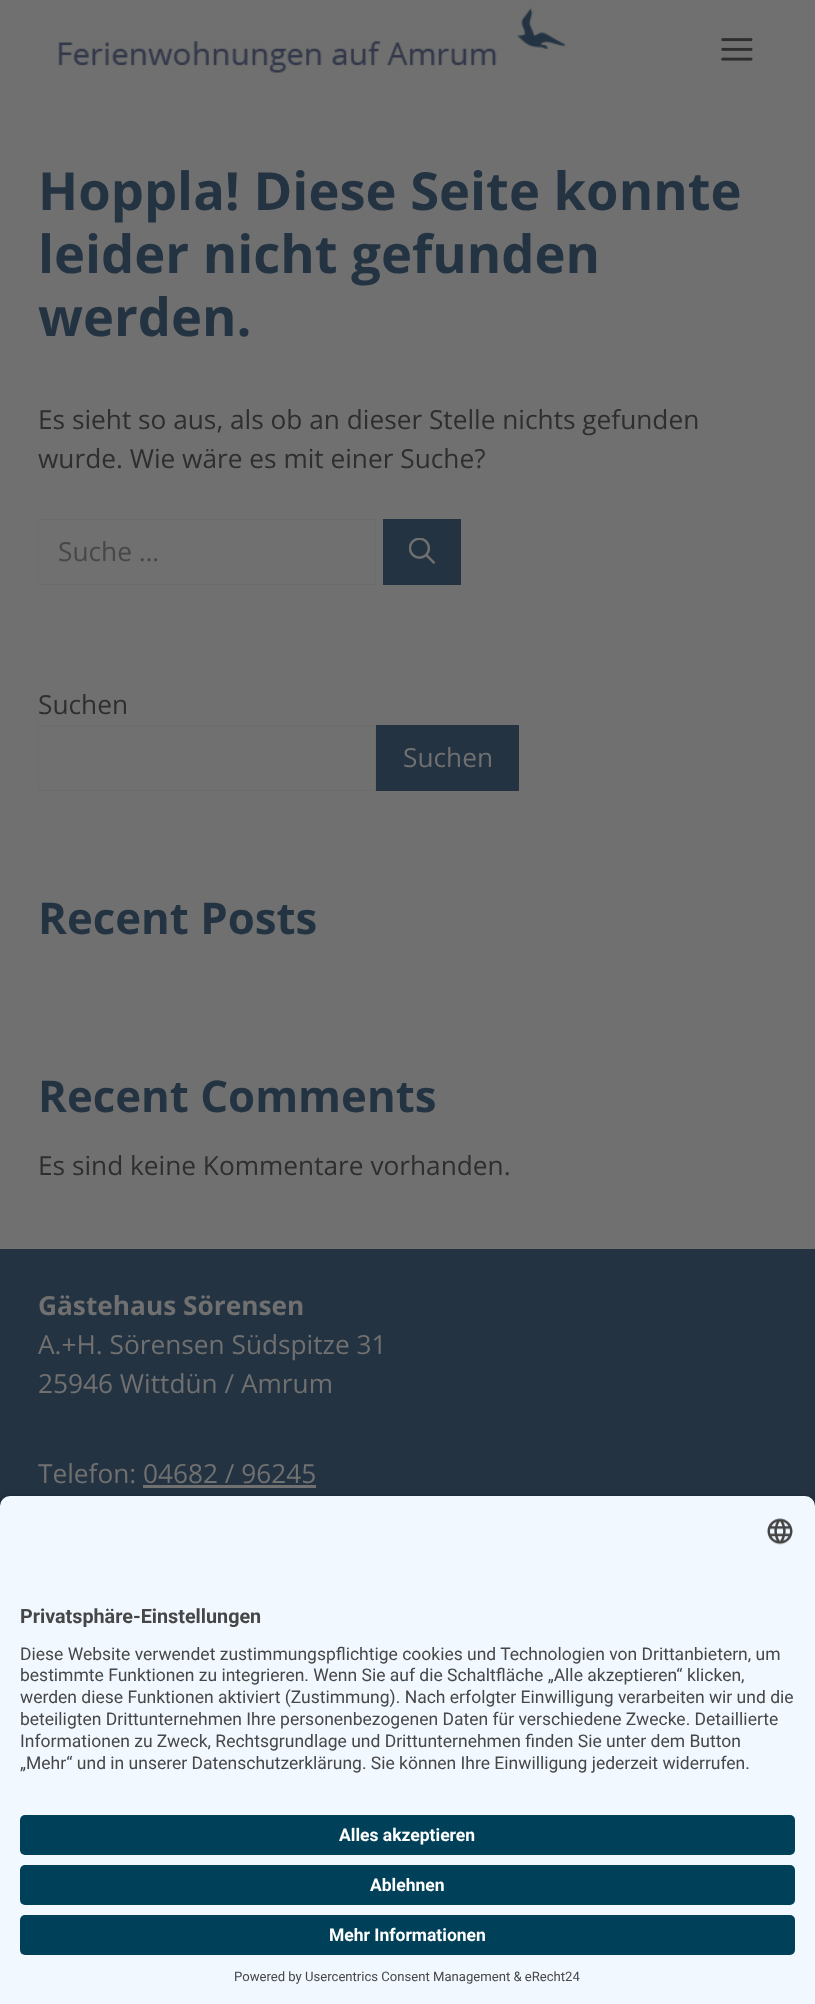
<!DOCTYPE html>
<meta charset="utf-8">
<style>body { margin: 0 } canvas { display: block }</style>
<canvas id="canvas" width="815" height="2004"></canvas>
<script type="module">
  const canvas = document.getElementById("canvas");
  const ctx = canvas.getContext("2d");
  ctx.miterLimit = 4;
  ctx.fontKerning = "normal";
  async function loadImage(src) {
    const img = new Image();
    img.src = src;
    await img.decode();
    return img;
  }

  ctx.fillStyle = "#707070";
  ctx.fillRect(0, 0, 815, 2004);
  ctx.drawImage(await loadImage("img1.png"), 58, 0, 509, 80);
  ctx.drawImage(await loadImage("img2.png"), 721, 38, 32, 23);
  ctx.font = "bold 52.5px Open Sans";
  ctx.fillStyle = "#243342";
  ctx.fillText("Hoppla! Diese Seite konnte", 38, 210);
  ctx.fillText("leider nicht gefunden", 38, 273);
  ctx.fillText("werden.", 38, 336);
  ctx.font = "26.25px Open Sans";
  ctx.fillStyle = "#2e2e2e";
  ctx.fillText("Es sieht so aus, als ob an dieser Stelle nichts gefunden", 38, 429);
  ctx.fillText("wurde. Wie wäre es mit einer Suche?", 38, 468);
  ctx.strokeStyle = "#6c6c6c";
  ctx.strokeRect(38.5, 519.5, 337, 65);
  ctx.fillStyle = "#474747";
  ctx.fillText("Suche …", 58, 561);
  ctx.fillStyle = "#243342";
  ctx.fillRect(383, 519, 78, 66);
  ctx.drawImage(await loadImage("img3.png"), 409, 538, 26, 26);
  ctx.fillStyle = "#2e2e2e";
  ctx.fillText("Suchen", 38, 714);
  ctx.strokeRect(38.5, 725.5, 337, 65);
  ctx.fillStyle = "#243342";
  ctx.fillRect(376, 725, 143, 66);
  ctx.fillStyle = "#707070";
  ctx.fillText("Suchen", 403, 767);
  ctx.font = "bold 43.75px Open Sans";
  ctx.fillStyle = "#243342";
  ctx.fillText("Recent Posts", 38, 934);
  ctx.fillText("Recent Comments", 38, 1112);
  ctx.font = "26.25px Open Sans";
  ctx.fillStyle = "#2e2e2e";
  ctx.fillText("Es sind keine Kommentare vorhanden.", 38, 1175);
  ctx.fillStyle = "#243342";
  ctx.fillRect(0, 1249, 815, 257);
  ctx.font = "bold 26.25px Open Sans";
  ctx.fillStyle = "#707070";
  ctx.fillText("Gästehaus Sörensen", 38, 1315);
  ctx.font = "26.25px Open Sans";
  ctx.fillText("A.+H. Sörensen Südspitze 31", 38, 1354);
  ctx.fillText("25946 Wittdün / Amrum", 38, 1393);
  ctx.fillText("Telefon: 04682 / 96245", 38, 1483);
  ctx.fillRect(143, 1485, 173, 3);
  ctx.fillStyle = "rgba(0, 0, 0, 0.8)";
  ctx.filter = "blur(4.5px)";
  ctx.beginPath();
  ctx.roundRect(0, 1500, 815, 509, 10);
  ctx.fill();
  ctx.filter = "none";
  ctx.fillStyle = "#f1f8ff";
  ctx.beginPath();
  ctx.roundRect(0, 1496, 815, 304, [10, 10, 0, 0]);
  ctx.fill();
  ctx.drawImage(await loadImage("img4.png"), 767, 1518, 26, 27);
  ctx.font = "bold 19.75px Roboto";
  ctx.fillStyle = "#474747";
  ctx.fillText("Privatsphäre-Einstellungen", 20, 1623);
  ctx.font = "17.5px Roboto";
  ctx.fillText("Diese Website verwendet zustimmungspflichtige cookies und Technologien von Drittanbietern, um", 20, 1660);
  ctx.fillText("bestimmte Funktionen zu integrieren. Wenn Sie auf die Schaltfläche „Alle akzeptieren“ klicken,", 20, 1681);
  ctx.fillText("werden diese Funktionen aktiviert (Zustimmung). Nach erfolgter Einwilligung verarbeiten wir und die", 20, 1703);
  ctx.fillText("beteiligten Drittunternehmen Ihre personenbezogenen Daten für verschiedene Zwecke. Detaillierte", 20, 1725);
  ctx.fillText("Informationen zu Zweck, Rechtsgrundlage und Drittunternehmen finden Sie unter dem Button", 20, 1747);
  ctx.fillText("„Mehr“ und in unserer Datenschutzerklärung. Sie können Ihre Einwilligung jederzeit widerrufen.", 20, 1769);
  ctx.fillStyle = "#f1f8ff";
  ctx.fillRect(0, 1800, 815, 204);
  ctx.fillStyle = "#004059";
  ctx.beginPath();
  ctx.roundRect(20, 1815, 775, 40, 5);
  ctx.fill();
  ctx.font = "bold 17.5px Roboto";
  ctx.fillStyle = "#ffffff";
  ctx.fillText("Alles akzeptieren", 339, 1841);
  ctx.fillStyle = "#004059";
  ctx.beginPath();
  ctx.roundRect(20, 1865, 775, 40, 5);
  ctx.fill();
  ctx.fillStyle = "#ffffff";
  ctx.fillText("Ablehnen", 370, 1891);
  ctx.fillStyle = "#004059";
  ctx.beginPath();
  ctx.roundRect(20, 1915, 775, 40, 5);
  ctx.fill();
  ctx.fillStyle = "#ffffff";
  ctx.fillText("Mehr Informationen", 329, 1941);
  ctx.font = "13.1px Roboto";
  ctx.fillStyle = "#474747";
  ctx.fillText("Powered by Usercentrics Consent Management & eRecht24", 234, 1981);
</script>
